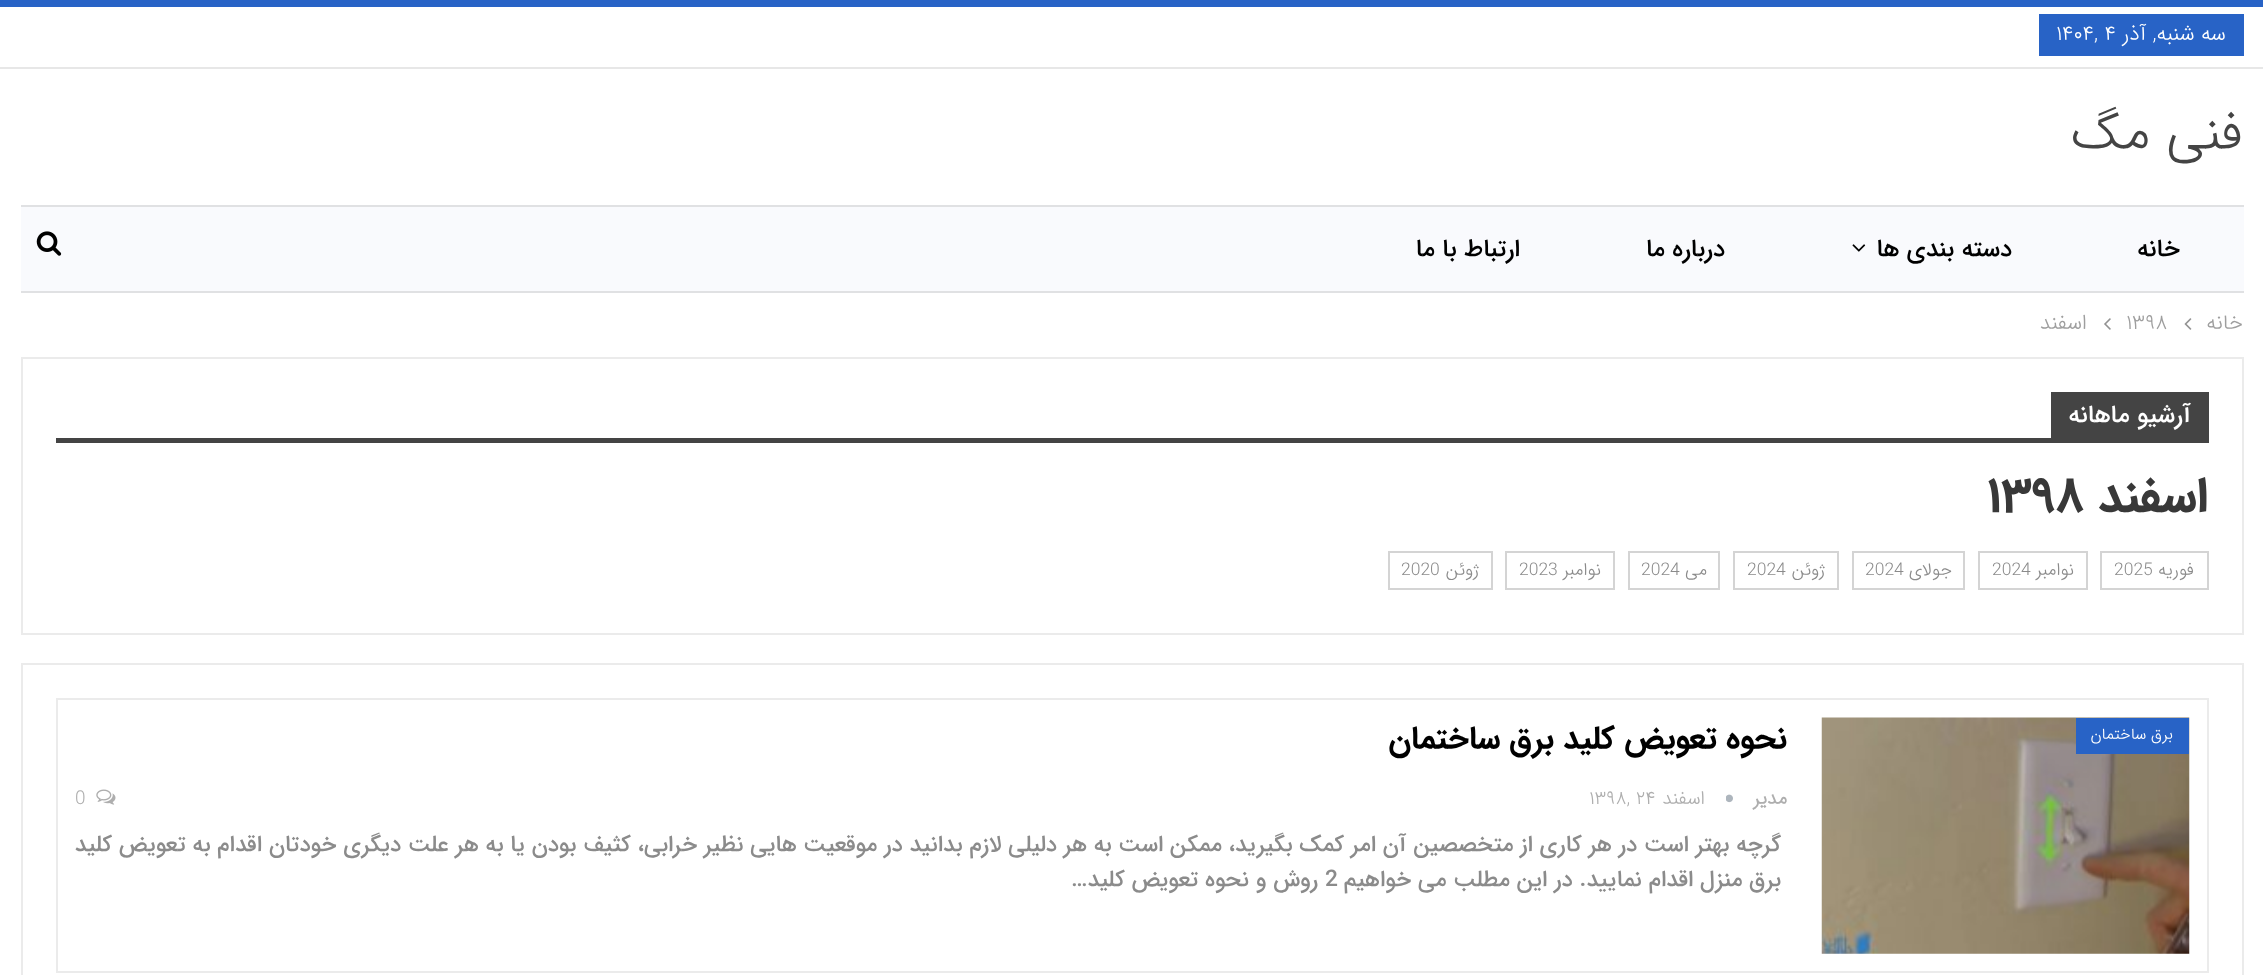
<!DOCTYPE html>
<meta charset="utf-8">
<style>body { margin: 0 } canvas { display: block }</style>
<canvas id="canvas" width="2263" height="975"></canvas>
<script type="module">
  const canvas = document.getElementById("canvas");
  const ctx = canvas.getContext("2d");
  ctx.miterLimit = 4;
  ctx.fontKerning = "normal";
  async function loadImage(src) {
    const img = new Image();
    img.src = src;
    await img.decode();
    return img;
  }

  ctx.fillStyle = "#ffffff";
  ctx.fillRect(0, 0, 2263, 975);
  ctx.fillStyle = "#2863c6";
  ctx.fillRect(0, 0, 2263, 7);
  ctx.fillStyle = "#e7e7e7";
  ctx.fillRect(0, 67, 2263, 2);
  ctx.fillStyle = "#2863c6";
  ctx.fillRect(2039, 14, 205, 42);
  ctx.direction = "rtl";
  ctx.font = "300 21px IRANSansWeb";
  ctx.fillStyle = "#ffffff";
  ctx.fillText("سه شنبه, آذر", 2226, 40);
  ctx.direction = "ltr";
  ctx.fillText("۱۴۰۴, ۴", 2056, 40);
  ctx.direction = "rtl";
  ctx.font = "300 52.5px IRANSansWeb";
  ctx.fillStyle = "#444444";
  ctx.fillText("فنی مگ", 2243, 149);
  ctx.fillStyle = "#f9fafd";
  ctx.fillRect(21, 207, 2223, 84);
  ctx.fillStyle = "#e0e1e3";
  ctx.fillRect(21, 205, 2223, 2);
  ctx.fillRect(21, 291, 2223, 2);
  ctx.font = "500 24.5px IRANSansWeb";
  ctx.fillStyle = "#000000";
  ctx.fillText("خانه", 2180, 256);
  ctx.fillText("دسته بندی ها", 2012, 256);
  ctx.drawImage(await loadImage("img1.png"), 1852, 244, 14, 8);
  ctx.fillText("درباره ما", 1725, 256);
  ctx.fillText("ارتباط با ما", 1520, 256);
  ctx.drawImage(await loadImage("img2.png"), 36, 231, 26, 25);
  ctx.font = "300 21px IRANSansWeb";
  ctx.fillStyle = "#9e9e9e";
  ctx.fillText("خانه", 2243, 329);
  ctx.drawImage(await loadImage("img3.png"), 2184, 318, 8, 12);
  ctx.direction = "ltr";
  ctx.fillText("۱۳۹۸", 2126, 329);
  ctx.drawImage(await loadImage("img4.png"), 2104, 318, 7, 12);
  ctx.direction = "rtl";
  ctx.fillText("اسفند", 2087, 329);
  ctx.strokeStyle = "#ebebeb";
  ctx.lineWidth = 2;
  ctx.strokeRect(22, 358, 2221, 276);
  ctx.fillStyle = "#444444";
  ctx.fillRect(2051, 392, 158, 46);
  ctx.font = "500 24.5px IRANSansWeb";
  ctx.fillStyle = "#ffffff";
  ctx.fillText("آرشیو ماهانه", 2191, 422);
  ctx.fillStyle = "#444444";
  ctx.fillRect(56, 438, 2153, 5);
  ctx.font = "bold 49px IRANSansWeb";
  ctx.fillStyle = "#383838";
  ctx.fillText("اسفند", 2208, 511);
  ctx.direction = "ltr";
  ctx.fillText("۱۳۹۸", 1987, 511);
  ctx.strokeStyle = "#d4d4d4";
  ctx.strokeRect(2101, 552, 107, 37);
  ctx.direction = "rtl";
  ctx.font = "300 17.5px IRANSansWeb";
  ctx.fillStyle = "#8b8b8b";
  ctx.fillText("فوریه", 2194, 575);
  ctx.direction = "ltr";
  ctx.fillText("2025", 2114, 575);
  ctx.strokeRect(1979, 552, 108, 37);
  ctx.direction = "rtl";
  ctx.fillText("نوامبر", 2074, 575);
  ctx.direction = "ltr";
  ctx.fillText("2024", 1992, 575);
  ctx.strokeRect(1853, 552, 111, 37);
  ctx.direction = "rtl";
  ctx.fillText("جولای", 1952, 575);
  ctx.direction = "ltr";
  ctx.fillText("2024", 1865, 575);
  ctx.strokeRect(1734, 552, 104, 37);
  ctx.direction = "rtl";
  ctx.fillText("ژوئن", 1825, 575);
  ctx.direction = "ltr";
  ctx.fillText("2024", 1747, 575);
  ctx.strokeRect(1629, 552, 90, 37);
  ctx.direction = "rtl";
  ctx.fillText("می", 1707, 575);
  ctx.direction = "ltr";
  ctx.fillText("2024", 1641, 575);
  ctx.strokeRect(1506, 552, 108, 37);
  ctx.direction = "rtl";
  ctx.fillText("نوامبر", 1601, 575);
  ctx.direction = "ltr";
  ctx.fillText("2023", 1519, 575);
  ctx.strokeRect(1389, 552, 103, 37);
  ctx.direction = "rtl";
  ctx.fillText("ژوئن", 1479, 575);
  ctx.direction = "ltr";
  ctx.fillText("2020", 1401, 575);
  ctx.strokeStyle = "#ebebeb";
  ctx.strokeRect(22, 664, 2221, 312);
  ctx.strokeRect(57, 699, 2151, 273);
  ctx.drawImage(await loadImage("img5.png"), 1821, 717, 369, 237);
  ctx.fillStyle = "#2863c6";
  ctx.fillRect(2076, 718, 113, 36);
  ctx.direction = "rtl";
  ctx.font = "300 15.75px IRANSansWeb";
  ctx.fillStyle = "#ffffff";
  ctx.fillText("برق ساختمان", 2173, 739);
  ctx.font = "bold 31.5px IRANSansWeb";
  ctx.fillStyle = "#000000";
  ctx.fillText("نحوه تعویض کلید برق ساختمان", 1787, 748);
  ctx.font = "bold 19px 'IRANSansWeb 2'";
  ctx.fillStyle = "#aeaeae";
  ctx.fillText("مدیر", 1787, 804);
  ctx.drawImage(await loadImage("img6.png"), 1726, 794, 7, 9);
  ctx.font = "300 19px IRANSansWeb";
  ctx.fillText("اسفند", 1705, 804);
  ctx.direction = "ltr";
  ctx.fillText("۱۳۹۸, ۲۴", 1589, 804);
  ctx.drawImage(await loadImage("img7.png"), 96, 789, 20, 16);
  ctx.fillText("0", 75, 804);
  ctx.direction = "rtl";
  ctx.font = "500 22.75px IRANSansWeb";
  ctx.fillStyle = "#8b8b8b";
  ctx.fillText("گرچه بهتر است در هر کاری از متخصصین آن امر کمک بگیرید، ممکن است به هر دلیلی لازم بدانید در موقعیت هایی نظیر خرابی، کثیف بودن یا به هر علت دیگری خودتان اقدام به تعویض کلید", 1781, 851);
  ctx.fillText("برق منزل اقدام نمایید. در این مطلب می خواهیم", 1781, 886);
  ctx.direction = "ltr";
  ctx.fillText("2", 1325, 886);
  ctx.direction = "rtl";
  ctx.fillText("روش و نحوه تعویض کلید…", 1318, 886);
</script>
